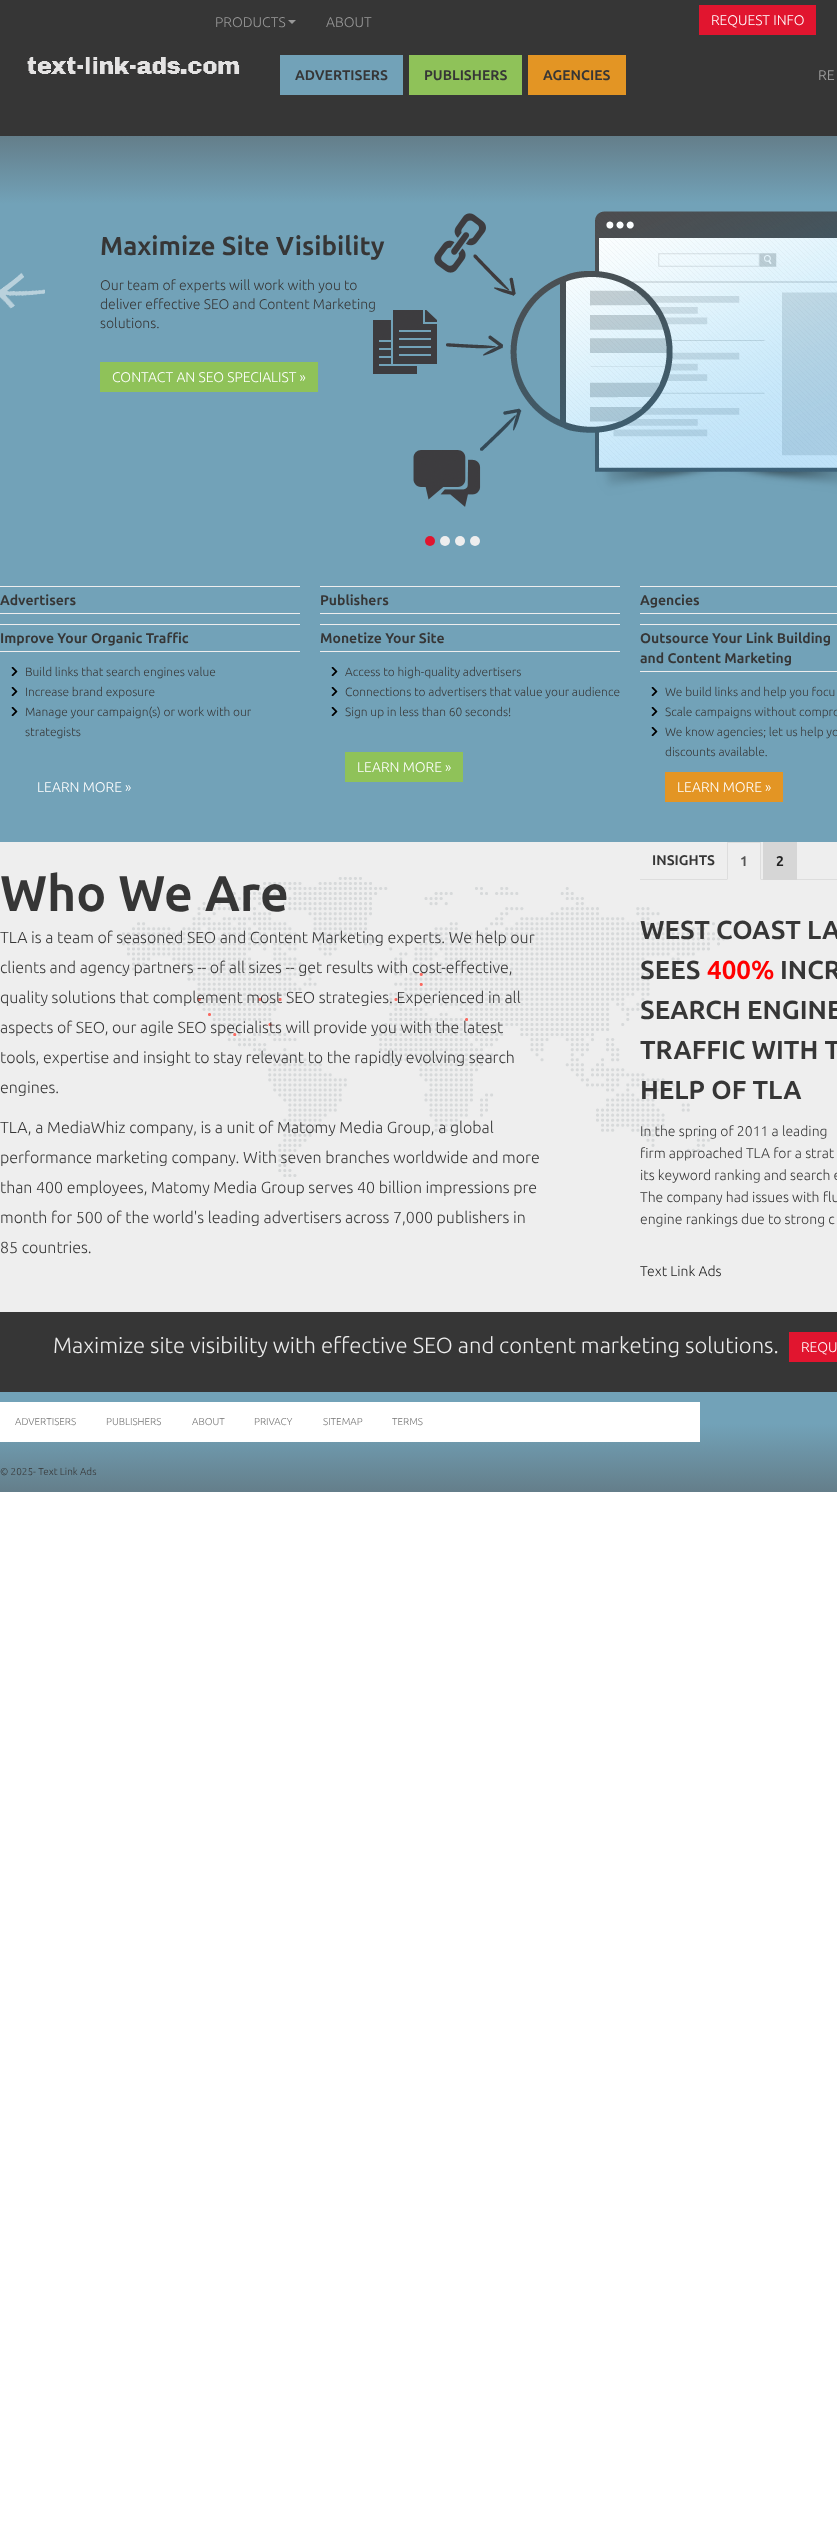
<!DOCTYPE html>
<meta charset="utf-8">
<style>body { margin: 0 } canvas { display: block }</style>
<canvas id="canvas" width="837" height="2546"></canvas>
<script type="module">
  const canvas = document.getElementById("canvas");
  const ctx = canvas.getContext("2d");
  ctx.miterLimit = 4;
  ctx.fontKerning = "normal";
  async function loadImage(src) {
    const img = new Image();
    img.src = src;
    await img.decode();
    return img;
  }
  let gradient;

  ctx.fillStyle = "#ffffff";
  ctx.fillRect(0, 0, 837, 2546);
  ctx.fillStyle = "#363636";
  ctx.fillRect(0, 0, 837, 136);
  ctx.font = "300 14px Ubuntu";
  ctx.fillStyle = "#999999";
  ctx.fillText("PRODUCTS", 215, 27);
  ctx.beginPath();
  ctx.moveTo(288, 20);
  ctx.lineTo(296, 20);
  ctx.lineTo(292, 24);
  ctx.closePath();
  ctx.fill();
  ctx.fillText("ABOUT", 326, 27);
  ctx.fillStyle = "#e1152f";
  ctx.fillRect(699, 5, 117, 30);
  ctx.fillStyle = "#ffffff";
  ctx.fillText("REQUEST INFO", 711, 25);
  ctx.drawImage(await loadImage("img1.png"), 27, 57, 213, 17);
  ctx.fillStyle = "#72a2b8";
  ctx.fillRect(280, 55, 123, 40);
  ctx.font = "bold 14px Ubuntu";
  ctx.fillStyle = "#363636";
  ctx.fillText("ADVERTISERS", 295, 80);
  ctx.fillStyle = "#8fc259";
  ctx.fillRect(409, 55, 113, 40);
  ctx.fillStyle = "#363636";
  ctx.fillText("PUBLISHERS", 424, 80);
  ctx.fillStyle = "#e39524";
  ctx.fillRect(528, 55, 98, 40);
  ctx.fillStyle = "#363636";
  ctx.fillText("AGENCIES", 543, 80);
  ctx.font = "14px Ubuntu";
  ctx.fillStyle = "#999999";
  ctx.fillText("RE", 818, 80);
  gradient = ctx.createLinearGradient(418, 136, 419, 1492);
  gradient.addColorStop(0, "#647e8a");
  gradient.addColorStop(0.05, "#72a2b8");
  gradient.addColorStop(0.95, "#72a2b8");
  gradient.addColorStop(1, "#647e8a");
  ctx.fillStyle = gradient;
  ctx.fillRect(0, 136, 837, 1356);
  ctx.drawImage(await loadImage("img2.png"), 0, 272, 45, 37);
  ctx.drawImage(await loadImage("img3.png"), 373, 211, 464, 296);
  ctx.font = "bold 26px Ubuntu";
  ctx.fillStyle = "#363636";
  ctx.fillText("Maximize Site Visibility", 100, 255);
  ctx.font = "300 14px Ubuntu";
  ctx.fillText("Our team of experts will work with you to", 100, 290);
  ctx.fillText("deliver effective SEO and Content Marketing", 100, 309);
  ctx.fillText("solutions.", 100, 328);
  ctx.fillStyle = "#8fc259";
  ctx.fillRect(100, 362, 218, 30);
  ctx.fillStyle = "#ffffff";
  ctx.fillText("CONTACT AN SEO SPECIALIST »", 112, 382);
  ctx.fillStyle = "#e1152f";
  ctx.beginPath();
  ctx.arc(430, 541, 5, 0, Math.PI * 2);
  ctx.fill();
  ctx.fillStyle = "#eeeeee";
  ctx.beginPath();
  ctx.arc(445, 541, 5, 0, Math.PI * 2);
  ctx.fill();
  ctx.beginPath();
  ctx.arc(460, 541, 5, 0, Math.PI * 2);
  ctx.fill();
  ctx.beginPath();
  ctx.arc(475, 541, 5, 0, Math.PI * 2);
  ctx.fill();
  ctx.fillRect(0, 586, 300, 1);
  ctx.fillRect(0, 613, 300, 1);
  ctx.font = "bold 14px Ubuntu";
  ctx.fillStyle = "#363636";
  ctx.fillText("Advertisers", 0, 605);
  ctx.fillStyle = "#eeeeee";
  ctx.fillRect(0, 624, 300, 1);
  ctx.fillRect(0, 651, 300, 1);
  ctx.fillStyle = "#363636";
  ctx.fillText("Improve Your Organic Traffic", 0, 643);
  ctx.drawImage(await loadImage("img4.png"), 11, 667, 7, 9);
  ctx.font = "300 12px Ubuntu";
  ctx.fillText("Build links that search engines value", 25, 676);
  ctx.drawImage(await loadImage("img4.png"), 11, 687, 7, 9);
  ctx.fillText("Increase brand exposure", 25, 696);
  ctx.drawImage(await loadImage("img4.png"), 11, 707, 7, 9);
  ctx.fillText("Manage your campaign(s) or work with our", 25, 716);
  ctx.fillText("strategists", 25, 736);
  ctx.font = "300 14px Ubuntu";
  ctx.fillStyle = "#ffffff";
  ctx.fillText("LEARN MORE »", 37, 792);
  ctx.fillStyle = "#eeeeee";
  ctx.fillRect(320, 586, 300, 1);
  ctx.fillRect(320, 613, 300, 1);
  ctx.font = "bold 14px Ubuntu";
  ctx.fillStyle = "#363636";
  ctx.fillText("Publishers", 320, 605);
  ctx.fillStyle = "#eeeeee";
  ctx.fillRect(320, 624, 300, 1);
  ctx.fillRect(320, 651, 300, 1);
  ctx.fillStyle = "#363636";
  ctx.fillText("Monetize Your Site", 320, 643);
  ctx.drawImage(await loadImage("img4.png"), 331, 667, 7, 9);
  ctx.font = "300 12px Ubuntu";
  ctx.fillText("Access to high-quality advertisers", 345, 676);
  ctx.drawImage(await loadImage("img4.png"), 331, 687, 7, 9);
  ctx.fillText("Connections to advertisers that value your audience", 345, 696);
  ctx.drawImage(await loadImage("img4.png"), 331, 707, 7, 9);
  ctx.fillText("Sign up in less than 60 seconds!", 345, 716);
  ctx.fillStyle = "#8fc259";
  ctx.fillRect(345, 752, 118, 30);
  ctx.font = "300 14px Ubuntu";
  ctx.fillStyle = "#ffffff";
  ctx.fillText("LEARN MORE »", 357, 772);
  ctx.fillStyle = "#eeeeee";
  ctx.fillRect(640, 586, 197, 1);
  ctx.fillRect(640, 613, 197, 1);
  ctx.font = "bold 14px Ubuntu";
  ctx.fillStyle = "#363636";
  ctx.fillText("Agencies", 640, 605);
  ctx.fillStyle = "#eeeeee";
  ctx.fillRect(640, 624, 197, 1);
  ctx.fillRect(640, 671, 197, 1);
  ctx.fillStyle = "#363636";
  ctx.fillText("Outsource Your Link Building", 640, 643);
  ctx.fillText("and Content Marketing", 640, 663);
  ctx.drawImage(await loadImage("img4.png"), 651, 687, 7, 9);
  ctx.font = "300 12px Ubuntu";
  ctx.fillText("We build links and help you focu", 665, 696);
  ctx.drawImage(await loadImage("img4.png"), 651, 707, 7, 9);
  ctx.fillText("Scale campaigns without compro", 665, 716);
  ctx.drawImage(await loadImage("img4.png"), 651, 727, 7, 9);
  ctx.fillText("We know agencies; let us help yo", 665, 736);
  ctx.fillText("discounts available.", 665, 756);
  ctx.fillStyle = "#e39524";
  ctx.fillRect(665, 772, 118, 30);
  ctx.font = "300 14px Ubuntu";
  ctx.fillStyle = "#ffffff";
  ctx.fillText("LEARN MORE »", 677, 792);
  ctx.fillStyle = "#eeeeee";
  ctx.fillRect(0, 842, 837, 470);
  ctx.drawImage(await loadImage("img5.png"), 122, 877, 603, 300);
  ctx.font = "bold 50px Ubuntu";
  ctx.fillStyle = "#363636";
  ctx.fillText("Who We Are", 0, 911);
  ctx.font = "300 16px Ubuntu";
  ctx.fillText("TLA is a team of seasoned SEO and Content Marketing experts. We help our", 0, 943);
  ctx.fillText("clients and agency partners -- of all sizes -- get results with cost-effective,", 0, 973);
  ctx.fillText("quality solutions that complement most SEO strategies. Experienced in all", 0, 1003);
  ctx.fillText("aspects of SEO, our agile SEO specialists will provide you with the latest", 0, 1033);
  ctx.fillText("tools, expertise and insight to stay relevant to the rapidly evolving search", 0, 1063);
  ctx.fillText("engines.", 0, 1093);
  ctx.fillText("TLA, a MediaWhiz company, is a unit of Matomy Media Group, a global", 0, 1133);
  ctx.fillText("performance marketing company. With seven branches worldwide and more", 0, 1163);
  ctx.fillText("than 400 employees, Matomy Media Group serves 40 billion impressions pre", 0, 1193);
  ctx.fillText("month for 500 of the world's leading advertisers across 7,000 publishers in", 0, 1223);
  ctx.fillText("85 countries.", 0, 1253);
  ctx.fillStyle = "#dddddd";
  ctx.fillRect(640, 879, 197, 1);
  ctx.font = "bold 14px Ubuntu";
  ctx.fillStyle = "#363636";
  ctx.fillText("INSIGHTS", 652, 865);
  ctx.fillStyle = "#eeeeee";
  ctx.fillRect(727, 879, 34, 1);
  ctx.fillStyle = "#dddddd";
  ctx.fillRect(727, 842, 34, 1);
  ctx.beginPath();
  ctx.moveTo(761, 842);
  ctx.lineTo(761, 880);
  ctx.lineTo(760, 879);
  ctx.lineTo(760, 843);
  ctx.closePath();
  ctx.moveTo(727, 880);
  ctx.lineTo(727, 842);
  ctx.lineTo(728, 843);
  ctx.lineTo(728, 879);
  ctx.closePath();
  ctx.fill();
  ctx.fillStyle = "#555555";
  ctx.fillText("1", 740, 866);
  ctx.fillStyle = "#d6d6d6";
  ctx.fillRect(763, 842, 34, 38);
  ctx.fillStyle = "#222222";
  ctx.fillText("2", 776, 866);
  ctx.font = "bold 26px Ubuntu";
  ctx.fillStyle = "#363636";
  ctx.fillText("WEST COAST LA", 640, 939);
  ctx.fillText("SEES", 640, 979);
  ctx.fillStyle = "#ff0000";
  ctx.fillText("400%", 707, 979);
  ctx.fillStyle = "#363636";
  ctx.fillText("INCR", 780, 979);
  ctx.fillText("SEARCH ENGINE", 640, 1019);
  ctx.fillText("TRAFFIC WITH T", 640, 1059);
  ctx.fillText("HELP OF TLA", 640, 1099);
  ctx.font = "300 14px Ubuntu";
  ctx.fillText("In the spring of 2011 a leading", 640, 1136);
  ctx.fillText("firm approached TLA for a strat", 640, 1158);
  ctx.fillText("its keyword ranking and search e", 640, 1180);
  ctx.fillText("The company had issues with flu", 640, 1202);
  ctx.fillText("engine rankings due to strong c", 640, 1224);
  ctx.fillStyle = "#222222";
  ctx.fillText("Text Link Ads", 640, 1276);
  ctx.fillStyle = "#363636";
  ctx.fillRect(0, 1312, 837, 80);
  ctx.font = "300 22px Ubuntu";
  ctx.fillStyle = "#eeeeee";
  ctx.fillText("Maximize site visibility with effective SEO and content marketing solutions.", 53, 1353);
  ctx.fillStyle = "#e1152f";
  ctx.fillRect(789, 1332, 48, 30);
  ctx.font = "300 14px Ubuntu";
  ctx.fillStyle = "#ffffff";
  ctx.fillText("REQU", 801, 1352);
  ctx.fillRect(0, 1402, 700, 40);
  ctx.font = "300 10px Ubuntu";
  ctx.fillStyle = "#777777";
  ctx.fillText("ADVERTISERS", 15, 1425);
  ctx.fillText("PUBLISHERS", 106, 1425);
  ctx.fillText("ABOUT", 192, 1425);
  ctx.fillText("PRIVACY", 254, 1425);
  ctx.fillText("SITEMAP", 323, 1425);
  ctx.fillText("TERMS", 392, 1425);
  ctx.fillStyle = "#363636";
  ctx.fillText("© 2025- Text Link Ads", 0, 1475);
</script>
